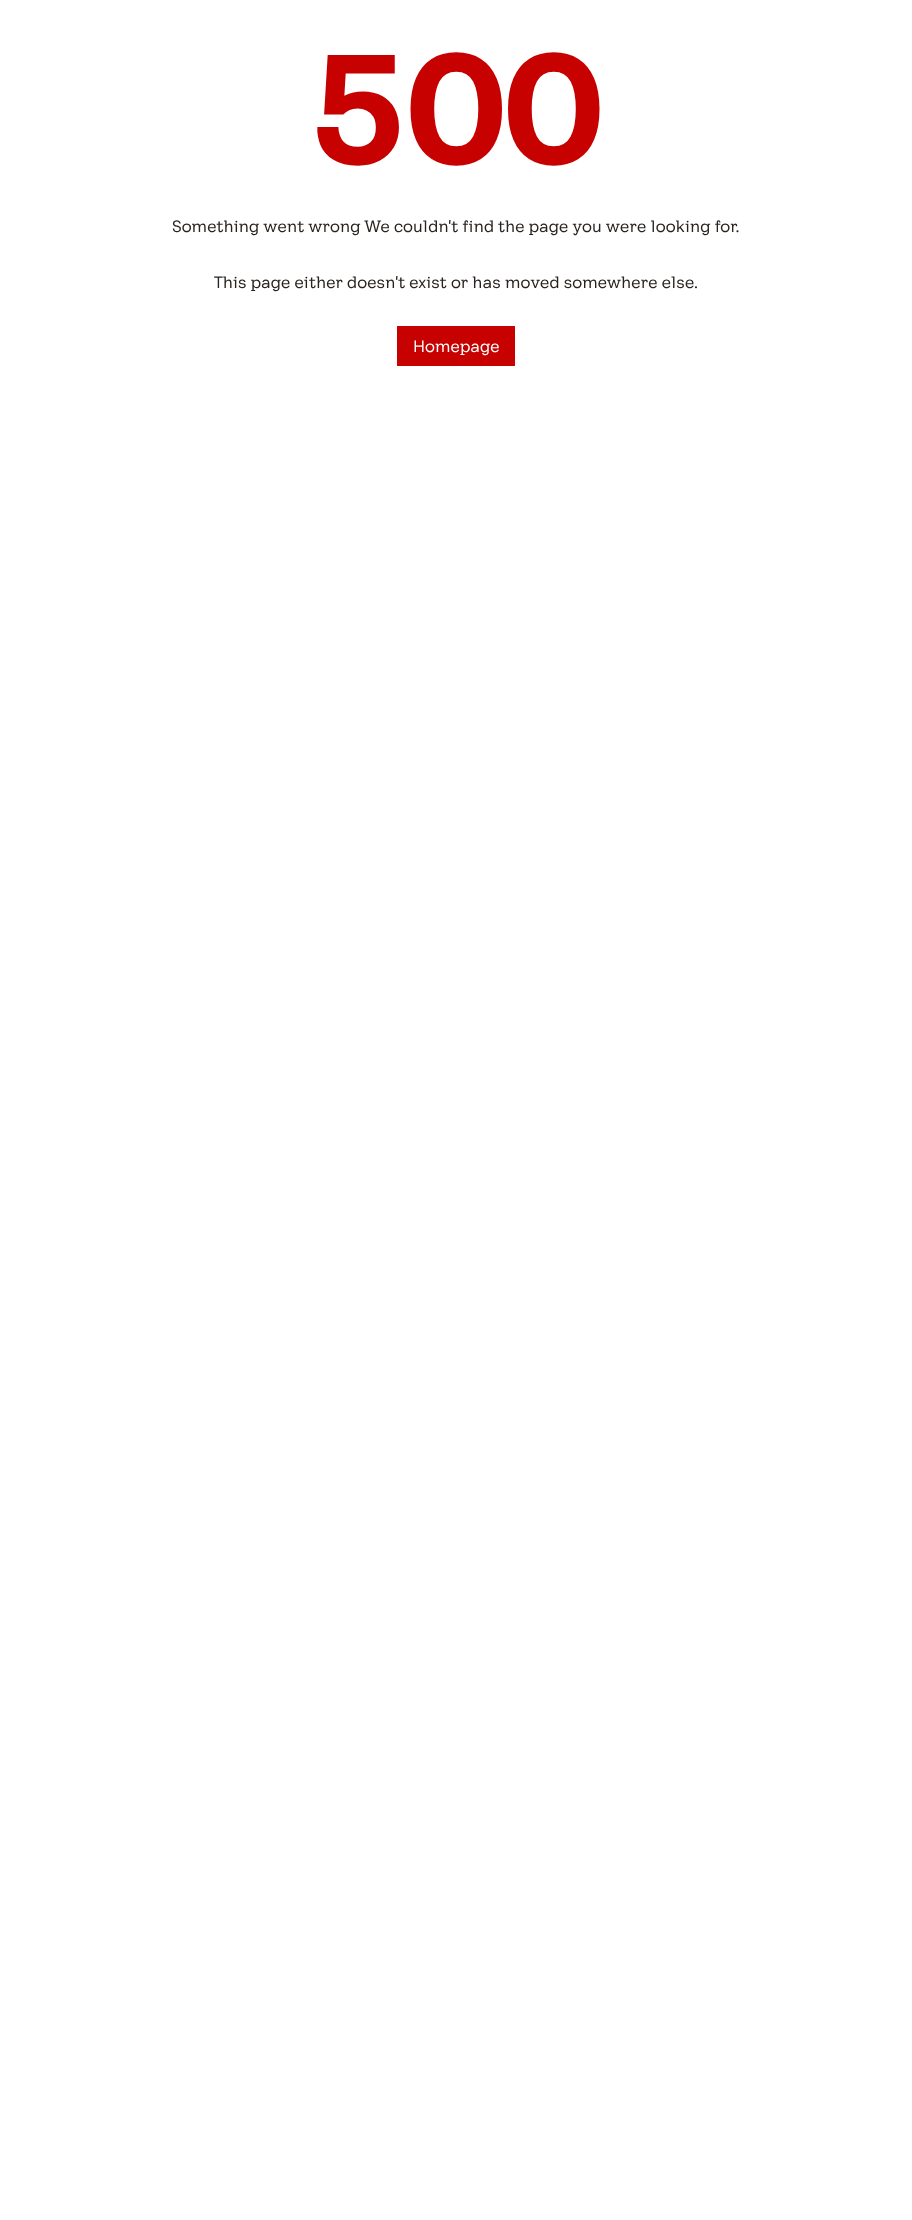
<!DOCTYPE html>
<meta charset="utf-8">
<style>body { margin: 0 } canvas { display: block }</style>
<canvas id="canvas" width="912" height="2220"></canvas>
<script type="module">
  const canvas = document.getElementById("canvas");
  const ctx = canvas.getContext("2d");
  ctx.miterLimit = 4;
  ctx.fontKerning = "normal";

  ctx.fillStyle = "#ffffff";
  ctx.fillRect(0, 0, 912, 2220);
  ctx.font = "bold 150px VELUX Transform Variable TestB";
  ctx.fillStyle = "#c70000";
  ctx.fillText("500", 310, 163);
  ctx.font = "16px VELUX Transform Variable TestB";
  ctx.fillStyle = "#28231f";
  ctx.fillText("Something went wrong We couldn't find the page you were looking for.", 172, 232);
  ctx.fillText("This page either doesn't exist or has moved somewhere else.", 214, 288);
  ctx.fillStyle = "#c70000";
  ctx.fillRect(397, 326, 118, 40);
  ctx.fillStyle = "#ffffff";
  ctx.fillText("Homepage", 413, 352);
</script>
